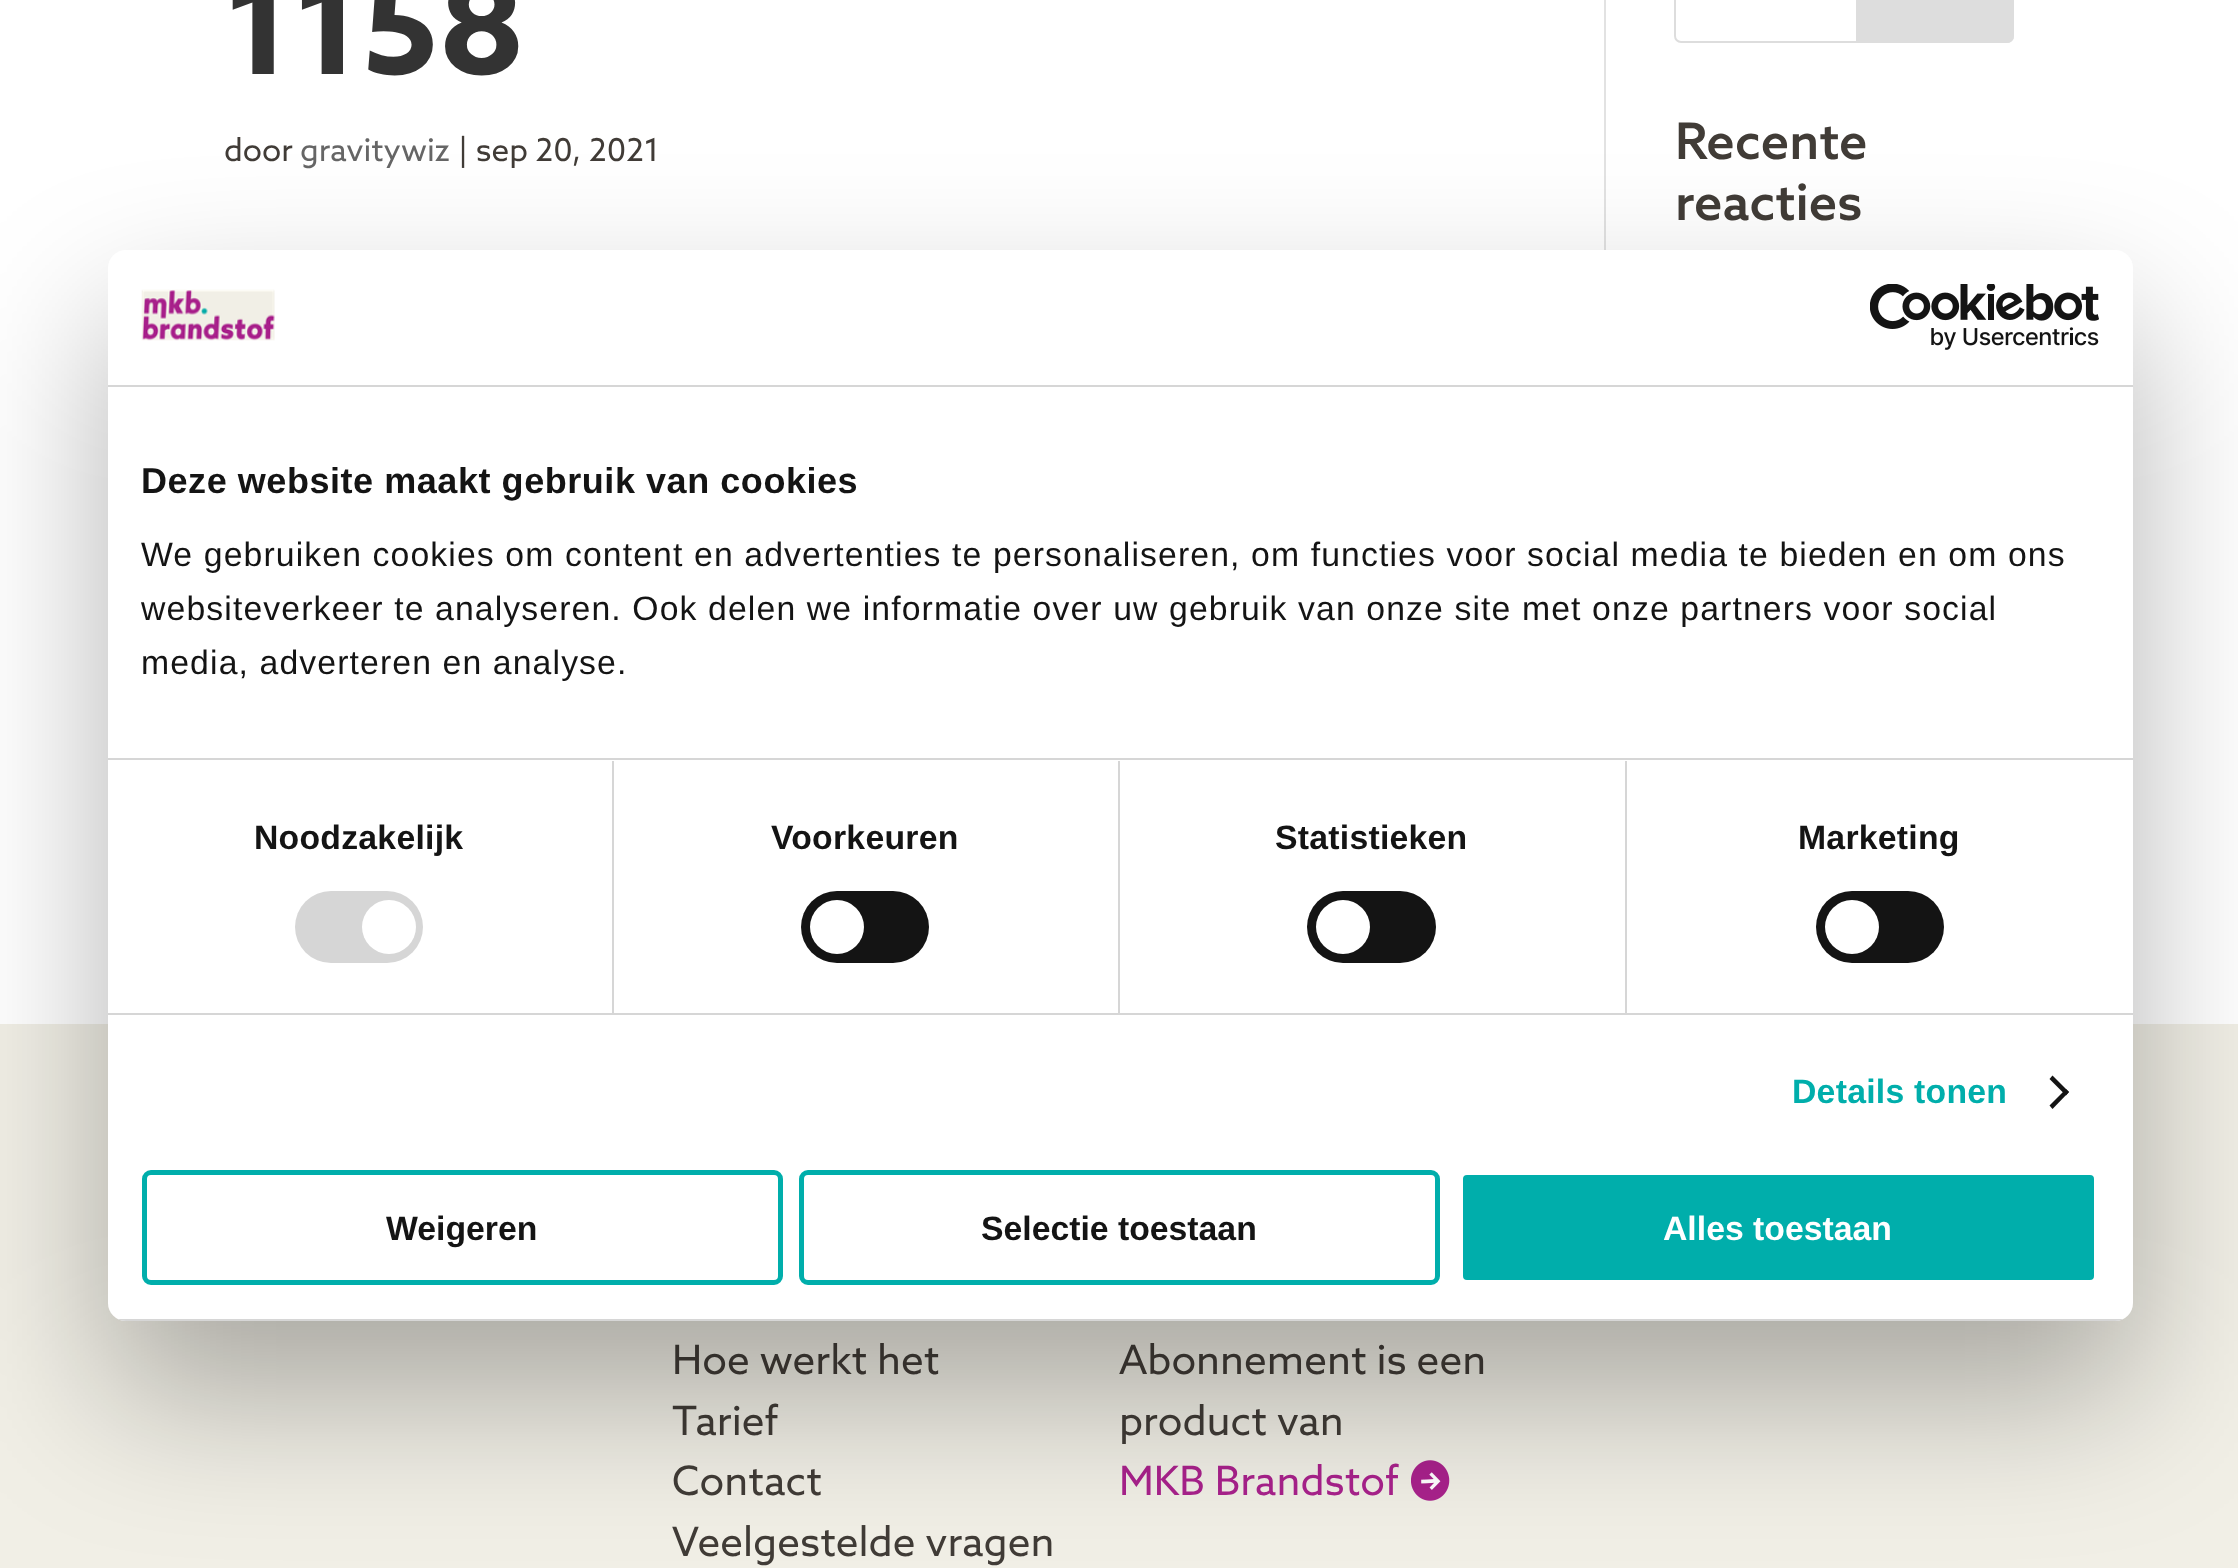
<!DOCTYPE html>
<meta charset="utf-8">
<style>body { margin: 0 } canvas { display: block }</style>
<canvas id="canvas" width="2238" height="1568"></canvas>
<script type="module">
  const canvas = document.getElementById("canvas");
  const ctx = canvas.getContext("2d");
  ctx.miterLimit = 4;
  ctx.fontKerning = "normal";
  async function loadImage(src) {
    const img = new Image();
    img.src = src;
    await img.decode();
    return img;
  }

  ctx.fillStyle = "#f1efe6";
  ctx.fillRect(0, 0, 2238, 1568);
  ctx.fillStyle = "#ffffff";
  ctx.fillRect(0, 0, 2238, 1024);
  ctx.font = "bold 134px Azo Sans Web";
  ctx.fillStyle = "#333333";
  ctx.fillText("1158", 224, 74);
  ctx.font = "31.5px Azo Sans Web";
  ctx.fillStyle = "#413c37";
  ctx.fillText("door", 224, 161);
  ctx.fillStyle = "#666666";
  ctx.fillText("gravitywiz", 300, 161);
  ctx.fillStyle = "#413c37";
  ctx.fillText("| sep 20, 2021", 458, 161);
  ctx.beginPath();
  ctx.roundRect(1675, -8, 338, 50, 6);
  ctx.strokeStyle = "#dddddd";
  ctx.lineWidth = 2;
  ctx.stroke();
  ctx.fillStyle = "#dddddd";
  ctx.beginPath();
  ctx.moveTo(1857, -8);
  ctx.lineTo(2007, -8);
  ctx.bezierCurveTo(2010.5, -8, 2013, -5.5, 2013, -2);
  ctx.lineTo(2013, 36);
  ctx.bezierCurveTo(2013, 39.5, 2010.5, 42, 2007, 42);
  ctx.lineTo(1857, 42);
  ctx.closePath();
  ctx.fill();
  ctx.stroke();
  ctx.font = "500 50.5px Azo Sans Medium";
  ctx.fillStyle = "#413c37";
  ctx.fillText("Recente", 1675, 159);
  ctx.fillText("reacties", 1675, 220);
  ctx.fillStyle = "#e2e2e2";
  ctx.fillRect(1604, 0, 2, 250);
  ctx.font = "40.5px Azo Sans Web";
  ctx.fillStyle = "#413c37";
  ctx.fillText("Hoe werkt het", 672, 1374);
  ctx.fillText("Tarief", 672, 1435);
  ctx.fillText("Contact", 672, 1495);
  ctx.fillText("Veelgestelde vragen", 672, 1556);
  ctx.fillText("Abonnement is een", 1119, 1374);
  ctx.fillText("product van", 1119, 1435);
  ctx.fillStyle = "#a9228c";
  ctx.fillText("MKB Brandstof", 1119, 1495);
  ctx.drawImage(await loadImage("img1.png"), 1411, 1460, 39, 41);
  ctx.fillStyle = "rgba(0, 0, 0, 0.3)";
  ctx.filter = "blur(76.5px)";
  ctx.beginPath();
  ctx.roundRect(108, 322, 2025, 1071, 18);
  ctx.fill();
  ctx.filter = "none";
  ctx.fillStyle = "#ffffff";
  ctx.beginPath();
  ctx.roundRect(108, 250, 2025, 1071, 18);
  ctx.fill();
  ctx.fillStyle = "#d6d6d6";
  ctx.fillRect(108, 385, 2025, 2);
  ctx.drawImage(await loadImage("img2.png"), 141, 289, 134, 52);
  ctx.drawImage(await loadImage("img3.png"), 1870, 284, 229, 66);
  ctx.fillRect(108, 758, 2025, 2);
  ctx.letterSpacing = "0.55px";
  ctx.font = "bold 36px Liberation Sans";
  ctx.fillStyle = "#141414";
  ctx.fillText("Deze website maakt gebruik van cookies", 141, 493);
  ctx.letterSpacing = "1.12px";
  ctx.font = "33.75px Liberation Sans";
  ctx.fillText("We gebruiken cookies om content en advertenties te personaliseren, om functies voor social media te bieden en om ons", 141, 566);
  ctx.fillText("websiteverkeer te analyseren. Ook delen we informatie over uw gebruik van onze site met onze partners voor social", 141, 620);
  ctx.fillText("media, adverteren en analyse.", 141, 674);
  ctx.fillStyle = "#d6d6d6";
  ctx.fillRect(108, 1013, 2025, 2);
  ctx.fillRect(612, 761, 2, 252);
  ctx.letterSpacing = "0.25px";
  ctx.font = "bold 33.75px Liberation Sans";
  ctx.fillStyle = "#141414";
  ctx.fillText("Noodzakelijk", 254, 849);
  ctx.fillStyle = "#d6d6d6";
  ctx.beginPath();
  ctx.roundRect(295, 891, 128, 72, 36);
  ctx.fill();
  ctx.fillStyle = "#ffffff";
  ctx.beginPath();
  ctx.arc(389, 927, 27, 0, Math.PI * 2);
  ctx.fill();
  ctx.fillStyle = "#d6d6d6";
  ctx.fillRect(1118, 761, 2, 252);
  ctx.fillStyle = "#141414";
  ctx.fillText("Voorkeuren", 771, 849);
  ctx.beginPath();
  ctx.roundRect(801, 891, 128, 72, 36);
  ctx.fill();
  ctx.fillStyle = "#ffffff";
  ctx.beginPath();
  ctx.arc(837, 927, 27, 0, Math.PI * 2);
  ctx.fill();
  ctx.fillStyle = "#d6d6d6";
  ctx.fillRect(1625, 761, 2, 252);
  ctx.fillStyle = "#141414";
  ctx.fillText("Statistieken", 1275, 849);
  ctx.beginPath();
  ctx.roundRect(1307, 891, 129, 72, 36);
  ctx.fill();
  ctx.fillStyle = "#ffffff";
  ctx.beginPath();
  ctx.arc(1343, 927, 27, 0, Math.PI * 2);
  ctx.fill();
  ctx.fillStyle = "#141414";
  ctx.fillText("Marketing", 1798, 849);
  ctx.beginPath();
  ctx.roundRect(1816, 891, 128, 72, 36);
  ctx.fill();
  ctx.fillStyle = "#ffffff";
  ctx.beginPath();
  ctx.arc(1852, 927, 27, 0, Math.PI * 2);
  ctx.fill();
  ctx.fillStyle = "#00aeab";
  ctx.fillText("Details tonen", 1792, 1103);
  ctx.fillStyle = "#141414";
  ctx.beginPath();
  ctx.moveTo(2052.5, 1075.5);
  ctx.lineTo(2069, 1092);
  ctx.lineTo(2066, 1095.5);
  ctx.lineTo(2049.5, 1079);
  ctx.closePath();
  ctx.fill();
  ctx.beginPath();
  ctx.moveTo(2066, 1089);
  ctx.lineTo(2069, 1092);
  ctx.lineTo(2052.5, 1109);
  ctx.lineTo(2049.5, 1105.5);
  ctx.closePath();
  ctx.fill();
  ctx.save();
  ctx.beginPath();
  ctx.roundRect(108, 250, 2025, 1071, 18);
  ctx.clip();
  ctx.fillStyle = "#d6d6d6";
  ctx.fillRect(118, 1319, 2005, 2);
  ctx.restore();
  ctx.beginPath();
  ctx.roundRect(144.5, 1172.5, 636, 110, 6.5);
  ctx.strokeStyle = "#00aeab";
  ctx.lineWidth = 5;
  ctx.stroke();
  ctx.letterSpacing = "0px";
  ctx.fillText("Weigeren", 386, 1240);
  ctx.beginPath();
  ctx.roundRect(801.5, 1172.5, 636, 110, 6.5);
  ctx.stroke();
  ctx.fillText("Selectie toestaan", 981, 1240);
  ctx.fillStyle = "#00aeab";
  ctx.beginPath();
  ctx.roundRect(1460.5, 1172.5, 636, 110, 6.5);
  ctx.fill();
  ctx.strokeStyle = "#ffffff";
  ctx.stroke();
  ctx.fillStyle = "#ffffff";
  ctx.fillText("Alles toestaan", 1663, 1240);
</script>
